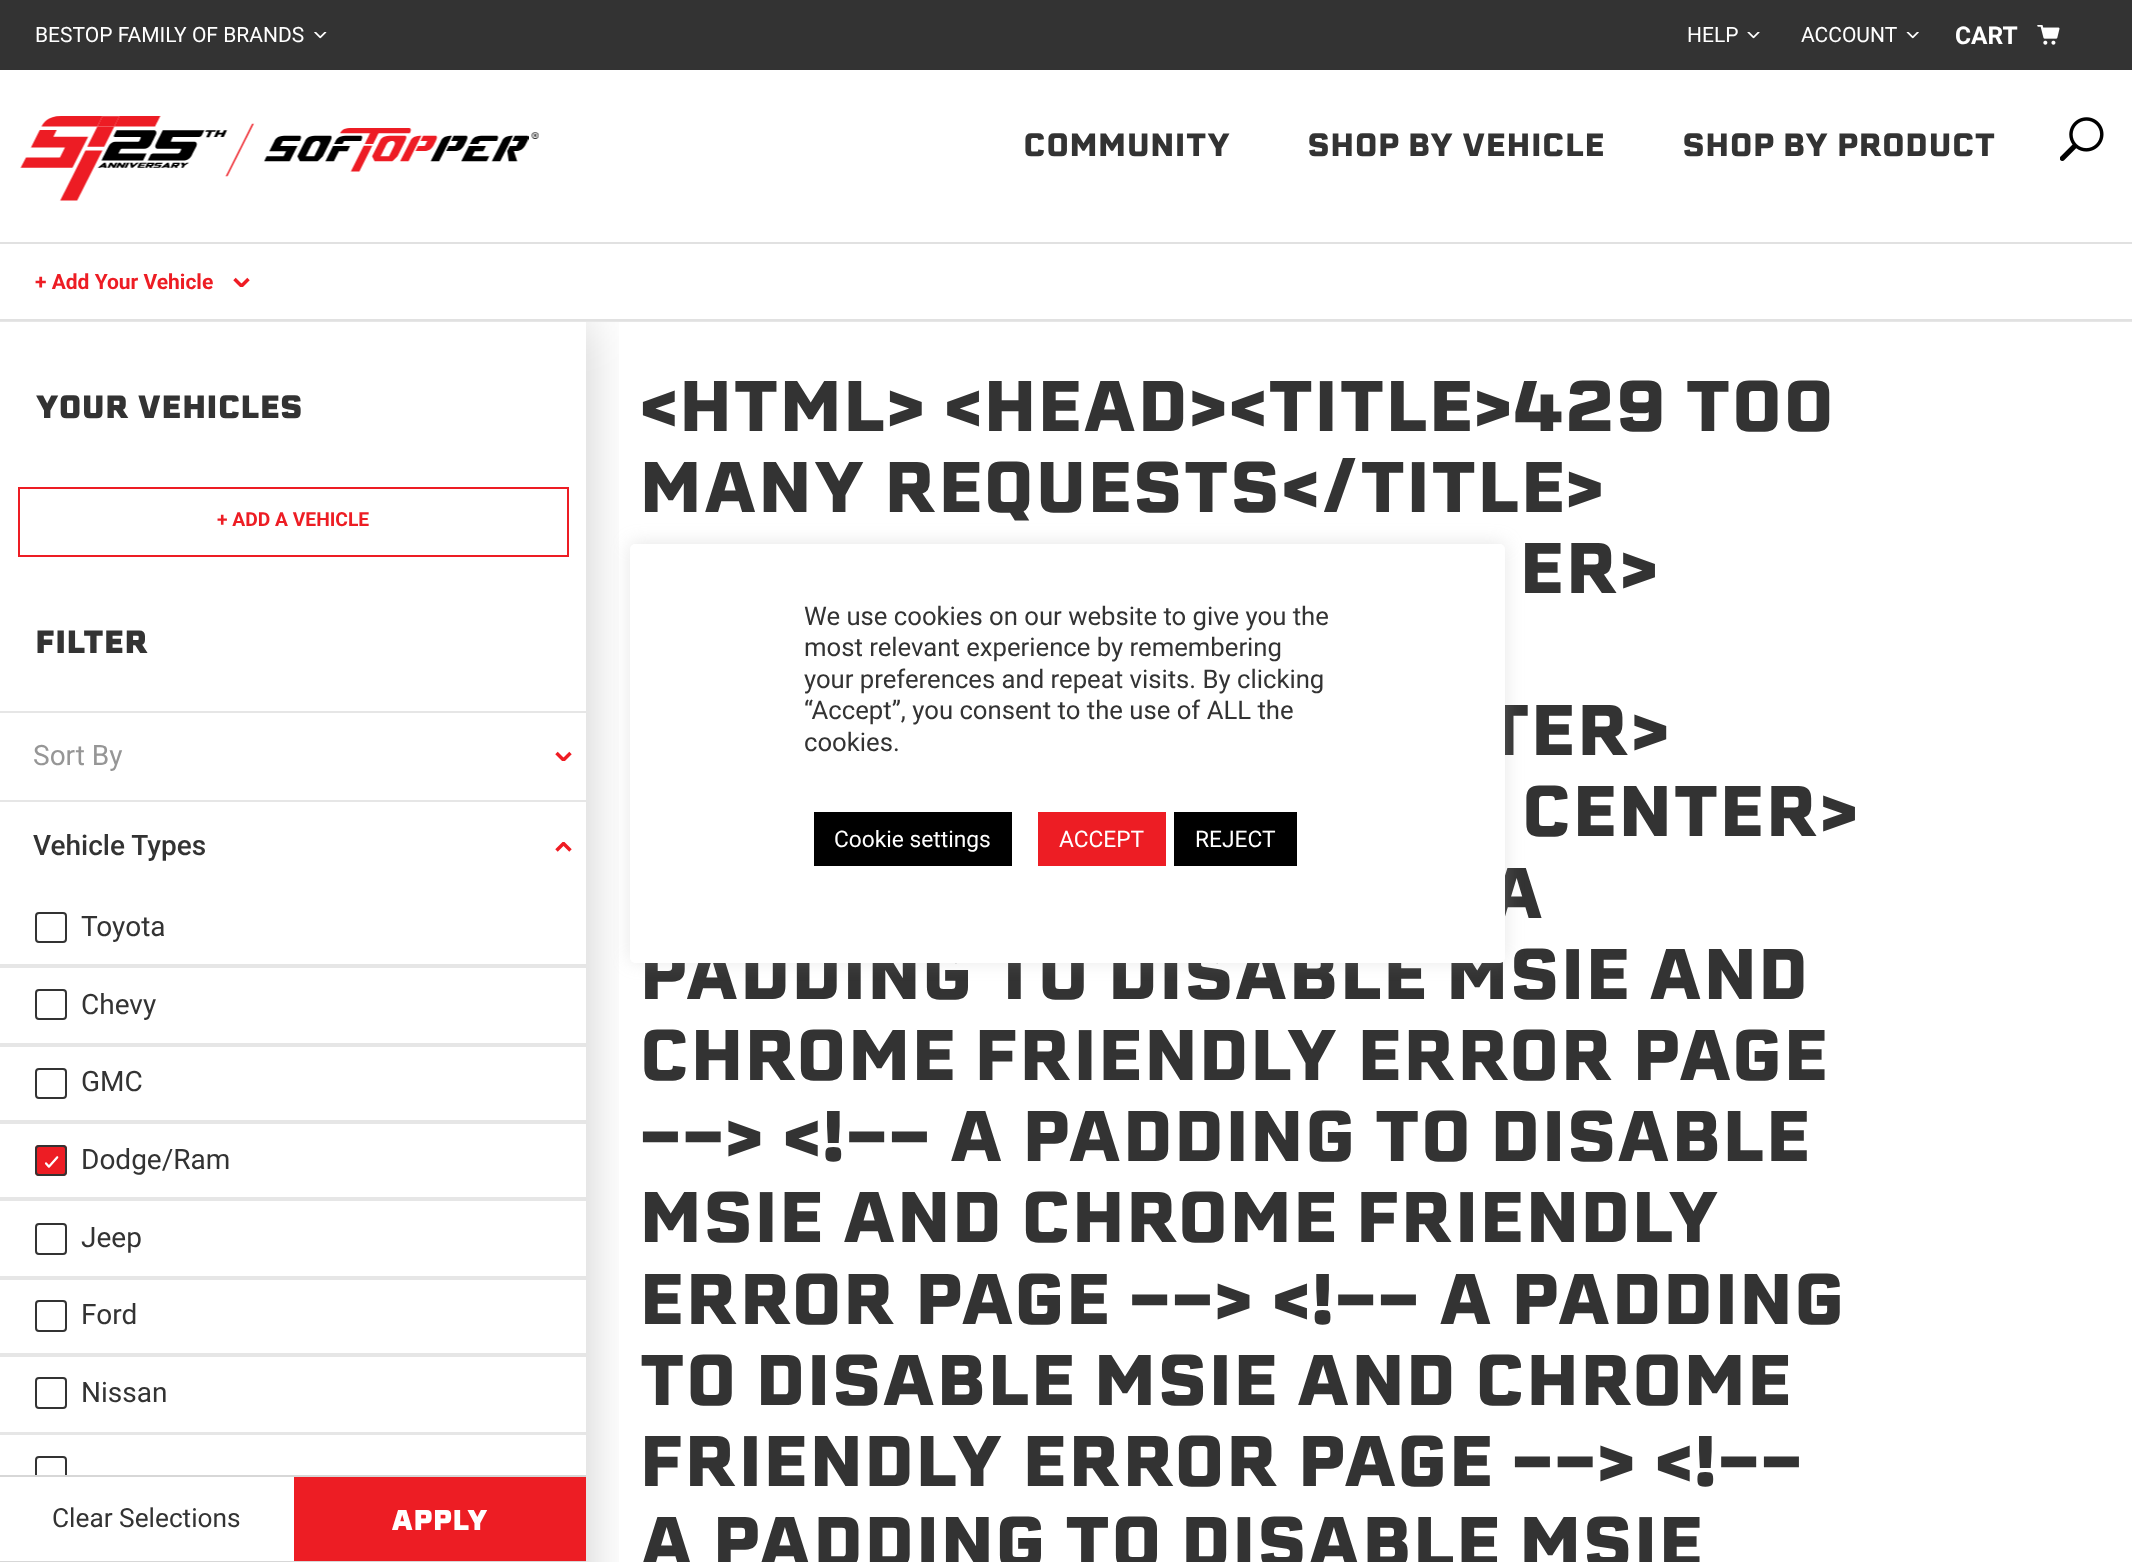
<!DOCTYPE html>
<meta charset="utf-8">
<style>body { margin: 0 } canvas { display: block }</style>
<canvas id="canvas" width="2132" height="1562"></canvas>
<script type="module">
  const canvas = document.getElementById("canvas");
  const ctx = canvas.getContext("2d");
  ctx.miterLimit = 4;
  ctx.fontKerning = "normal";
  async function loadImage(src) {
    const img = new Image();
    img.src = src;
    await img.decode();
    return img;
  }

  ctx.fillStyle = "#ffffff";
  ctx.fillRect(0, 0, 2132, 1562);
  ctx.save();
  ctx.beginPath();
  ctx.rect(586, 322, 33, 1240);
  ctx.clip();
  ctx.fillStyle = "rgba(0, 0, 0, 0.2)";
  ctx.filter = "blur(26px)";
  ctx.beginPath();
  ctx.rect(0, 322, 586, 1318);
  ctx.fill();
  ctx.filter = "none";
  ctx.restore();
  ctx.fillRect(0, 279, 618, 40);
  ctx.fillStyle = "#e6e6e6";
  ctx.fillRect(0, 321, 2132, 1);
  ctx.fillStyle = "#333333";
  ctx.fillRect(0, 0, 2132, 70);
  ctx.font = "21px Roboto";
  ctx.fillStyle = "#ffffff";
  ctx.fillText("BESTOP FAMILY OF BRANDS", 35, 42);
  ctx.drawImage(await loadImage("img1.png"), 314, 32, 13, 7);
  ctx.fillText("HELP", 1687, 42);
  ctx.drawImage(await loadImage("img2.png"), 1747, 32, 13, 7);
  ctx.fillText("ACCOUNT", 1801, 42);
  ctx.drawImage(await loadImage("img3.png"), 1906, 32, 13, 7);
  ctx.drawImage(await loadImage("img4.png"), 2037, 25, 23, 20);
  ctx.font = "bold 24.5px Roboto";
  ctx.fillText("CART", 1955, 44);
  ctx.drawImage(await loadImage("img5.png"), 20, 116, 519, 85);
  ctx.font = "bold 31.5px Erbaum";
  ctx.fillStyle = "#333333";
  ctx.fillText("COMMUNITY", 1023, 156);
  ctx.fillText("SHOP BY VEHICLE", 1307, 156);
  ctx.fillText("SHOP BY PRODUCT", 1682, 156);
  ctx.drawImage(await loadImage("img6.png"), 2060, 117, 44, 44);
  ctx.fillStyle = "#e1e1e1";
  ctx.fillRect(0, 242, 2132, 2);
  ctx.fillRect(0, 319, 2132, 2);
  ctx.font = "bold 21px Roboto";
  ctx.fillStyle = "#ed1d24";
  ctx.fillText("+ Add Your Vehicle", 35, 289);
  ctx.save();
  ctx.beginPath();
  ctx.rect(233, 277, 17, 10);
  ctx.clip();
  ctx.beginPath();
  ctx.moveTo(248.5, 279);
  ctx.lineTo(241.5, 286);
  ctx.lineTo(234.5, 279);
  ctx.strokeStyle = "#ef1c24";
  ctx.lineWidth = 3.5;
  ctx.stroke();
  ctx.restore();
  ctx.font = "900 31.5px Erbaum";
  ctx.fillStyle = "#333333";
  ctx.fillText("YOUR VEHICLES", 35, 418);
  ctx.strokeStyle = "#ed1d24";
  ctx.lineWidth = 2;
  ctx.strokeRect(19, 488, 549, 68);
  ctx.font = "bold 19.25px Roboto";
  ctx.fillStyle = "#ed1d24";
  ctx.fillText("+ ADD A VEHICLE", 217, 526);
  ctx.font = "900 31.5px Erbaum";
  ctx.fillStyle = "#333333";
  ctx.fillText("FILTER", 35, 653);
  ctx.fillStyle = "#e6e6e6";
  ctx.fillRect(0, 711, 586, 2);
  ctx.font = "28px Roboto";
  ctx.fillStyle = "#969696";
  ctx.fillText("Sort By", 33, 765);
  ctx.save();
  ctx.beginPath();
  ctx.rect(555, 751, 17, 10);
  ctx.clip();
  ctx.beginPath();
  ctx.moveTo(570.5, 753);
  ctx.lineTo(563.5, 760);
  ctx.lineTo(556.5, 753);
  ctx.strokeStyle = "#ef1c24";
  ctx.lineWidth = 3.5;
  ctx.stroke();
  ctx.restore();
  ctx.fillStyle = "#e6e6e6";
  ctx.fillRect(0, 800, 586, 2);
  ctx.font = "500 28px Roboto";
  ctx.fillStyle = "#333333";
  ctx.fillText("Vehicle Types", 33, 855);
  ctx.save();
  ctx.beginPath();
  ctx.rect(555, 842, 17, 10);
  ctx.clip();
  ctx.beginPath();
  ctx.moveTo(570.5, 850.5);
  ctx.lineTo(563.5, 843.5);
  ctx.lineTo(556.5, 850.5);
  ctx.strokeStyle = "#ef1c24";
  ctx.lineWidth = 3.5;
  ctx.stroke();
  ctx.restore();
  ctx.beginPath();
  ctx.roundRect(36, 913, 30, 29, 3);
  ctx.strokeStyle = "#333333";
  ctx.stroke();
  ctx.font = "28px Roboto";
  ctx.fillText("Toyota", 81, 936);
  ctx.fillStyle = "#e6e6e6";
  ctx.fillRect(0, 964, 586, 4);
  ctx.beginPath();
  ctx.roundRect(36, 990, 30, 29, 3);
  ctx.stroke();
  ctx.fillStyle = "#333333";
  ctx.fillText("Chevy", 81, 1014);
  ctx.fillStyle = "#e6e6e6";
  ctx.fillRect(0, 1043, 586, 4);
  ctx.beginPath();
  ctx.roundRect(36, 1069, 30, 29, 3);
  ctx.stroke();
  ctx.fillStyle = "#333333";
  ctx.fillText("GMC", 81, 1091);
  ctx.fillStyle = "#e6e6e6";
  ctx.fillRect(0, 1120, 586, 4);
  ctx.fillStyle = "#ed1d24";
  ctx.beginPath();
  ctx.roundRect(35, 1145, 32, 31, 4);
  ctx.fill();
  ctx.drawImage(await loadImage("img7.png"), 44, 1156, 15, 12);
  ctx.beginPath();
  ctx.roundRect(36, 1146, 30, 29, 3);
  ctx.stroke();
  ctx.fillStyle = "#333333";
  ctx.fillText("Dodge/Ram", 81, 1169);
  ctx.fillStyle = "#e6e6e6";
  ctx.fillRect(0, 1197, 586, 4);
  ctx.beginPath();
  ctx.roundRect(36, 1224, 30, 30, 3);
  ctx.stroke();
  ctx.fillStyle = "#333333";
  ctx.fillText("Jeep", 81, 1247);
  ctx.fillStyle = "#e6e6e6";
  ctx.fillRect(0, 1276, 586, 4);
  ctx.beginPath();
  ctx.roundRect(36, 1301, 30, 30, 3);
  ctx.stroke();
  ctx.fillStyle = "#333333";
  ctx.fillText("Ford", 81, 1324);
  ctx.fillStyle = "#e6e6e6";
  ctx.fillRect(0, 1353, 586, 4);
  ctx.beginPath();
  ctx.roundRect(36, 1378, 30, 30, 3);
  ctx.stroke();
  ctx.fillStyle = "#333333";
  ctx.fillText("Nissan", 81, 1402);
  ctx.fillStyle = "#e6e6e6";
  ctx.fillRect(0, 1432, 586, 3);
  ctx.beginPath();
  ctx.roundRect(36, 1457, 30, 30, 3);
  ctx.stroke();
  ctx.font = "bold 70px Erbaum";
  ctx.fillStyle = "#333333";
  ctx.fillText("<HTML> <HEAD><TITLE>429 TOO", 639, 431);
  ctx.fillText("MANY REQUESTS<\/TITLE>", 639, 512);
  ctx.fillText("ER>", 1519, 593);
  ctx.fillText("TER>", 1484, 755);
  ctx.fillText("CENTER>", 1521, 836);
  ctx.fillText("A", 1489, 918);
  ctx.fillText("PADDING TO DISABLE MSIE AND", 639, 999);
  ctx.fillText("CHROME FRIENDLY ERROR PAGE", 639, 1080);
  ctx.fillText("--> <\!-- A PADDING TO DISABLE", 639, 1161);
  ctx.fillText("MSIE AND CHROME FRIENDLY", 639, 1242);
  ctx.fillText("ERROR PAGE --> <\!-- A PADDING", 639, 1324);
  ctx.fillText("TO DISABLE MSIE AND CHROME", 639, 1405);
  ctx.fillText("FRIENDLY ERROR PAGE --> <\!--", 639, 1486);
  ctx.fillText("A PADDING TO DISABLE MSIE", 639, 1567);
  ctx.fillStyle = "#ffffff";
  ctx.fillRect(35, 1477, 32, 11);
  ctx.fillStyle = "#d7d7d7";
  ctx.fillRect(0, 1475, 586, 2);
  ctx.fillRect(0, 1561, 586, 1);
  ctx.font = "26.25px Roboto";
  ctx.fillStyle = "#333333";
  ctx.fillText("Clear Selections", 52, 1527);
  ctx.fillStyle = "#ed1d24";
  ctx.fillRect(294, 1477, 292, 84);
  ctx.font = "900 28px Erbaum";
  ctx.fillStyle = "#ffffff";
  ctx.fillText("APPLY", 391, 1530);
  ctx.fillStyle = "rgba(172, 171, 171, 0.3)";
  ctx.filter = "blur(9px)";
  ctx.beginPath();
  ctx.roundRect(630, 543, 875, 418, 5);
  ctx.fill();
  ctx.filter = "none";
  ctx.fillStyle = "#ffffff";
  ctx.beginPath();
  ctx.roundRect(630, 544, 875, 419, 5);
  ctx.fill();
  ctx.font = "25.7px Roboto";
  ctx.fillStyle = "#333333";
  ctx.fillText("We use cookies on our website to give you the", 804, 625);
  ctx.fillText("most relevant experience by remembering", 804, 656);
  ctx.fillText("your preferences and repeat visits. By clicking", 804, 688);
  ctx.fillText("“Accept”, you consent to the use of ALL the", 804, 719);
  ctx.fillText("cookies.", 804, 751);
  ctx.fillStyle = "#000000";
  ctx.fillRect(814, 812, 198, 54);
  ctx.font = "22.75px Roboto";
  ctx.fillStyle = "#ffffff";
  ctx.fillText("Cookie settings", 834, 847);
  ctx.fillStyle = "#ed1d24";
  ctx.fillRect(1038, 812, 128, 54);
  ctx.fillStyle = "#ffffff";
  ctx.fillText("ACCEPT", 1059, 847);
  ctx.fillStyle = "#000000";
  ctx.fillRect(1174, 812, 123, 54);
  ctx.fillStyle = "#ffffff";
  ctx.fillText("REJECT", 1195, 847);
</script>
